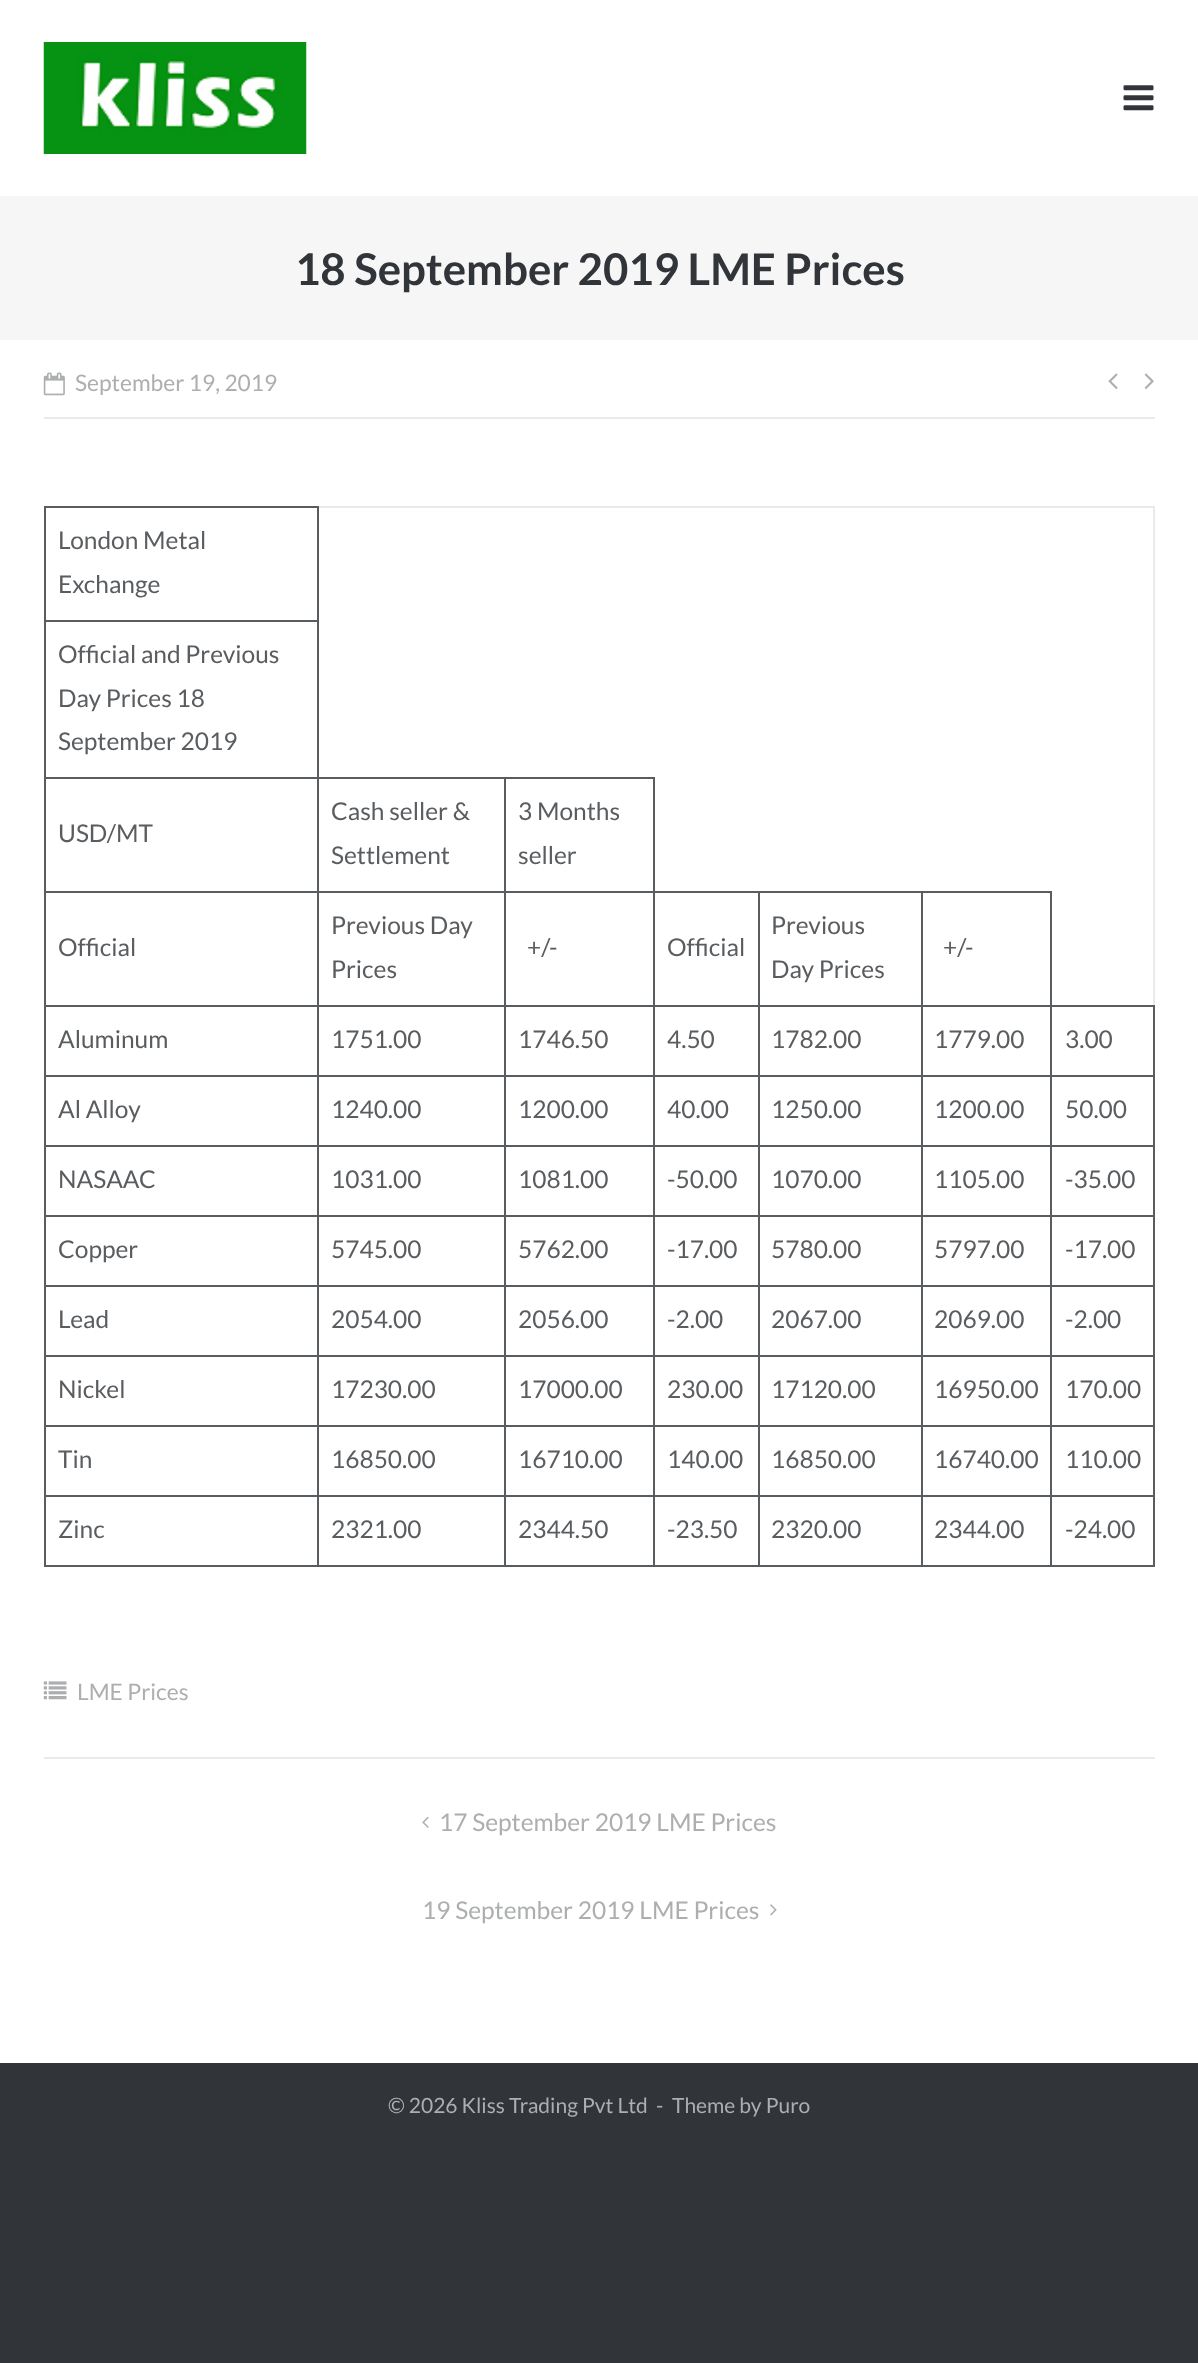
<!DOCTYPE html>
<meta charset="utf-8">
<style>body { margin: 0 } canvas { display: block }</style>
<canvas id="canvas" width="1198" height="2363"></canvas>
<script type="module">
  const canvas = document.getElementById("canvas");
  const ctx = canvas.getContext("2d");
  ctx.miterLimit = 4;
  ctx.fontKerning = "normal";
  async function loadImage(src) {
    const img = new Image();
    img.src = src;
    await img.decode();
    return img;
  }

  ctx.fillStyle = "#313539";
  ctx.fillRect(0, 0, 1198, 2363);
  ctx.fillStyle = "#ffffff";
  ctx.fillRect(0, 0, 1198, 2063);
  ctx.drawImage(await loadImage("img1.png"), 43, 42, 264, 112);
  ctx.drawImage(await loadImage("img2.png"), 1123, 85, 31, 26);
  ctx.fillStyle = "#f6f6f7";
  ctx.fillRect(0, 196, 1198, 144);
  ctx.font = "bold 43.75px Lato";
  ctx.fillStyle = "#313539";
  ctx.fillText("18 September 2019 LME Prices", 295, 285);
  ctx.fillStyle = "#eaeaeb";
  ctx.fillRect(44, 417, 1111, 2);
  ctx.drawImage(await loadImage("img3.png"), 43, 372, 22, 24);
  ctx.font = "22.75px Lato";
  ctx.fillStyle = "#acaeaf";
  ctx.fillText("September 19, 2019", 75, 391);
  ctx.drawImage(await loadImage("img4.png"), 1108, 373, 10, 16);
  ctx.drawImage(await loadImage("img5.png"), 1144, 373, 10, 16);
  ctx.fillStyle = "#eaeaeb";
  ctx.fillRect(319, 506, 836, 2);
  ctx.fillRect(1153, 506, 2, 499);
  ctx.fillStyle = "#5a5d60";
  ctx.fillRect(44, 506, 275, 2);
  ctx.fillRect(44, 620, 275, 2);
  ctx.fillRect(504, 777, 151, 2);
  ctx.fillRect(921, 891, 131, 2);
  ctx.fillRect(1050, 1005, 105, 2);
  ctx.fillRect(1050, 1075, 105, 2);
  ctx.fillRect(1050, 1145, 105, 2);
  ctx.fillRect(1050, 1215, 105, 2);
  ctx.fillRect(1050, 1285, 105, 2);
  ctx.fillRect(1050, 1355, 105, 2);
  ctx.fillRect(1050, 1425, 105, 2);
  ctx.fillRect(1050, 1495, 105, 2);
  ctx.fillRect(1153, 1495, 2, 71);
  ctx.fillRect(1050, 1565, 105, 2);
  ctx.fillRect(1050, 1495, 2, 71);
  ctx.fillRect(921, 1495, 131, 2);
  ctx.fillRect(1050, 1425, 2, 71);
  ctx.fillRect(921, 1425, 131, 2);
  ctx.fillRect(1050, 1355, 2, 71);
  ctx.fillRect(921, 1355, 131, 2);
  ctx.fillRect(1050, 1285, 2, 71);
  ctx.fillRect(921, 1285, 131, 2);
  ctx.fillRect(1050, 1215, 2, 71);
  ctx.fillRect(921, 1215, 131, 2);
  ctx.fillRect(1050, 1145, 2, 71);
  ctx.fillRect(921, 1145, 131, 2);
  ctx.fillRect(1050, 1075, 2, 71);
  ctx.fillRect(921, 1075, 131, 2);
  ctx.fillRect(1050, 1005, 2, 71);
  ctx.fillRect(921, 1005, 131, 2);
  ctx.fillRect(921, 1565, 131, 2);
  ctx.fillRect(921, 1495, 2, 71);
  ctx.fillRect(758, 1495, 164, 2);
  ctx.fillRect(921, 1425, 2, 71);
  ctx.fillRect(758, 1425, 164, 2);
  ctx.fillRect(921, 1355, 2, 71);
  ctx.fillRect(758, 1355, 164, 2);
  ctx.fillRect(921, 1285, 2, 71);
  ctx.fillRect(758, 1285, 164, 2);
  ctx.fillRect(921, 1215, 2, 71);
  ctx.fillRect(758, 1215, 164, 2);
  ctx.fillRect(921, 1145, 2, 71);
  ctx.fillRect(758, 1145, 164, 2);
  ctx.fillRect(921, 1075, 2, 71);
  ctx.fillRect(758, 1075, 164, 2);
  ctx.fillRect(921, 1005, 2, 71);
  ctx.fillRect(758, 1005, 164, 2);
  ctx.fillRect(921, 891, 2, 115);
  ctx.fillRect(758, 891, 164, 2);
  ctx.fillRect(758, 1565, 164, 2);
  ctx.fillRect(758, 1495, 2, 71);
  ctx.fillRect(653, 1495, 107, 2);
  ctx.fillRect(758, 1425, 2, 71);
  ctx.fillRect(653, 1425, 107, 2);
  ctx.fillRect(758, 1355, 2, 71);
  ctx.fillRect(653, 1355, 107, 2);
  ctx.fillRect(758, 1285, 2, 71);
  ctx.fillRect(653, 1285, 107, 2);
  ctx.fillRect(758, 1215, 2, 71);
  ctx.fillRect(653, 1215, 107, 2);
  ctx.fillRect(758, 1145, 2, 71);
  ctx.fillRect(653, 1145, 107, 2);
  ctx.fillRect(758, 1075, 2, 71);
  ctx.fillRect(653, 1075, 107, 2);
  ctx.fillRect(758, 1005, 2, 71);
  ctx.fillRect(653, 1005, 107, 2);
  ctx.fillRect(758, 891, 2, 115);
  ctx.fillRect(653, 891, 107, 2);
  ctx.fillRect(653, 1565, 107, 2);
  ctx.fillRect(653, 1495, 2, 71);
  ctx.fillRect(504, 1495, 151, 2);
  ctx.fillRect(653, 1425, 2, 71);
  ctx.fillRect(504, 1425, 151, 2);
  ctx.fillRect(653, 1355, 2, 71);
  ctx.fillRect(504, 1355, 151, 2);
  ctx.fillRect(653, 1285, 2, 71);
  ctx.fillRect(504, 1285, 151, 2);
  ctx.fillRect(653, 1215, 2, 71);
  ctx.fillRect(504, 1215, 151, 2);
  ctx.fillRect(653, 1145, 2, 71);
  ctx.fillRect(504, 1145, 151, 2);
  ctx.fillRect(653, 1075, 2, 71);
  ctx.fillRect(504, 1075, 151, 2);
  ctx.fillRect(653, 1005, 2, 71);
  ctx.fillRect(504, 1005, 151, 2);
  ctx.fillRect(653, 891, 2, 115);
  ctx.fillRect(504, 891, 151, 2);
  ctx.fillRect(504, 1565, 151, 2);
  ctx.fillRect(504, 1495, 2, 71);
  ctx.fillRect(317, 1495, 189, 2);
  ctx.fillRect(504, 1425, 2, 71);
  ctx.fillRect(317, 1425, 189, 2);
  ctx.fillRect(504, 1355, 2, 71);
  ctx.fillRect(317, 1355, 189, 2);
  ctx.fillRect(504, 1285, 2, 71);
  ctx.fillRect(317, 1285, 189, 2);
  ctx.fillRect(504, 1215, 2, 71);
  ctx.fillRect(317, 1215, 189, 2);
  ctx.fillRect(504, 1145, 2, 71);
  ctx.fillRect(317, 1145, 189, 2);
  ctx.fillRect(504, 1075, 2, 71);
  ctx.fillRect(317, 1075, 189, 2);
  ctx.fillRect(504, 1005, 2, 71);
  ctx.fillRect(317, 1005, 189, 2);
  ctx.fillRect(504, 891, 2, 115);
  ctx.fillRect(317, 891, 189, 2);
  ctx.fillRect(504, 777, 2, 116);
  ctx.fillRect(317, 777, 189, 2);
  ctx.fillRect(317, 1565, 189, 2);
  ctx.fillRect(317, 1495, 2, 71);
  ctx.fillRect(44, 1495, 275, 2);
  ctx.fillRect(317, 1425, 2, 71);
  ctx.fillRect(44, 1425, 275, 2);
  ctx.fillRect(317, 1355, 2, 71);
  ctx.fillRect(44, 1355, 275, 2);
  ctx.fillRect(317, 1285, 2, 71);
  ctx.fillRect(44, 1285, 275, 2);
  ctx.fillRect(317, 1215, 2, 71);
  ctx.fillRect(44, 1215, 275, 2);
  ctx.fillRect(317, 1145, 2, 71);
  ctx.fillRect(44, 1145, 275, 2);
  ctx.fillRect(317, 1075, 2, 71);
  ctx.fillRect(44, 1075, 275, 2);
  ctx.fillRect(317, 1005, 2, 71);
  ctx.fillRect(44, 1005, 275, 2);
  ctx.fillRect(317, 891, 2, 115);
  ctx.fillRect(44, 891, 275, 2);
  ctx.fillRect(317, 777, 2, 116);
  ctx.fillRect(44, 777, 275, 2);
  ctx.fillRect(317, 620, 2, 159);
  ctx.fillRect(317, 506, 2, 115);
  ctx.fillRect(44, 1565, 275, 2);
  ctx.fillRect(44, 1495, 2, 71);
  ctx.fillRect(44, 1425, 2, 71);
  ctx.fillRect(44, 1355, 2, 71);
  ctx.fillRect(44, 1285, 2, 71);
  ctx.fillRect(44, 1215, 2, 71);
  ctx.fillRect(44, 1145, 2, 71);
  ctx.fillRect(44, 1075, 2, 71);
  ctx.fillRect(44, 1005, 2, 71);
  ctx.fillRect(44, 891, 2, 115);
  ctx.fillRect(44, 777, 2, 116);
  ctx.fillRect(44, 620, 2, 159);
  ctx.fillRect(44, 506, 2, 115);
  ctx.font = "24.5px Lato";
  ctx.fillText("London Metal", 58, 549);
  ctx.fillText("Exchange", 58, 593);
  ctx.fillText("Official and Previous", 58, 663);
  ctx.fillText("Day Prices 18", 58, 707);
  ctx.fillText("September 2019", 58, 750);
  ctx.fillText("USD/MT", 58, 842);
  ctx.fillText("Cash seller &", 331, 820);
  ctx.fillText("Settlement", 331, 864);
  ctx.fillRect(653, 777, 2, 116);
  ctx.fillText("3 Months", 518, 820);
  ctx.fillText("seller", 518, 864);
  ctx.fillText("Official", 58, 956);
  ctx.fillText("Previous Day", 331, 934);
  ctx.fillText("Prices", 331, 978);
  ctx.fillText("+/-", 527, 956);
  ctx.fillText("Official", 667, 956);
  ctx.fillText("Previous", 771, 934);
  ctx.fillText("Day Prices", 771, 978);
  ctx.fillRect(1050, 891, 2, 115);
  ctx.fillText("+/-", 943, 956);
  ctx.fillText("Aluminum", 58, 1048);
  ctx.fillText("1751.00", 331, 1048);
  ctx.fillText("1746.50", 518, 1048);
  ctx.fillText("4.50", 667, 1048);
  ctx.fillText("1782.00", 771, 1048);
  ctx.fillText("1779.00", 934, 1048);
  ctx.fillRect(1153, 1425, 2, 71);
  ctx.fillRect(1153, 1355, 2, 71);
  ctx.fillRect(1153, 1285, 2, 71);
  ctx.fillRect(1153, 1215, 2, 71);
  ctx.fillRect(1153, 1145, 2, 71);
  ctx.fillRect(1153, 1075, 2, 71);
  ctx.fillRect(1153, 1005, 2, 71);
  ctx.fillText("3.00", 1065, 1048);
  ctx.fillText("Al Alloy", 58, 1118);
  ctx.fillText("1240.00", 331, 1118);
  ctx.fillText("1200.00", 518, 1118);
  ctx.fillText("40.00", 667, 1118);
  ctx.fillText("1250.00", 771, 1118);
  ctx.fillText("1200.00", 934, 1118);
  ctx.fillText("50.00", 1065, 1118);
  ctx.fillText("NASAAC", 58, 1188);
  ctx.fillText("1031.00", 331, 1188);
  ctx.fillText("1081.00", 518, 1188);
  ctx.fillText("-50.00", 667, 1188);
  ctx.fillText("1070.00", 771, 1188);
  ctx.fillText("1105.00", 934, 1188);
  ctx.fillText("-35.00", 1065, 1188);
  ctx.fillText("Copper", 58, 1258);
  ctx.fillText("5745.00", 331, 1258);
  ctx.fillText("5762.00", 518, 1258);
  ctx.fillText("-17.00", 667, 1258);
  ctx.fillText("5780.00", 771, 1258);
  ctx.fillText("5797.00", 934, 1258);
  ctx.fillText("-17.00", 1065, 1258);
  ctx.fillText("Lead", 58, 1328);
  ctx.fillText("2054.00", 331, 1328);
  ctx.fillText("2056.00", 518, 1328);
  ctx.fillText("-2.00", 667, 1328);
  ctx.fillText("2067.00", 771, 1328);
  ctx.fillText("2069.00", 934, 1328);
  ctx.fillText("-2.00", 1065, 1328);
  ctx.fillText("Nickel", 58, 1398);
  ctx.fillText("17230.00", 331, 1398);
  ctx.fillText("17000.00", 518, 1398);
  ctx.fillText("230.00", 667, 1398);
  ctx.fillText("17120.00", 771, 1398);
  ctx.fillText("16950.00", 934, 1398);
  ctx.fillText("170.00", 1065, 1398);
  ctx.fillText("Tin", 58, 1468);
  ctx.fillText("16850.00", 331, 1468);
  ctx.fillText("16710.00", 518, 1468);
  ctx.fillText("140.00", 667, 1468);
  ctx.fillText("16850.00", 771, 1468);
  ctx.fillText("16740.00", 934, 1468);
  ctx.fillText("110.00", 1065, 1468);
  ctx.fillText("Zinc", 58, 1538);
  ctx.fillText("2321.00", 331, 1538);
  ctx.fillText("2344.50", 518, 1538);
  ctx.fillText("-23.50", 667, 1538);
  ctx.fillText("2320.00", 771, 1538);
  ctx.fillText("2344.00", 934, 1538);
  ctx.fillText("-24.00", 1065, 1538);
  ctx.drawImage(await loadImage("img6.png"), 43, 1681, 24, 19);
  ctx.font = "22.75px Lato";
  ctx.fillStyle = "#acaeaf";
  ctx.fillText("LME Prices", 77, 1700);
  ctx.fillStyle = "#eaeaeb";
  ctx.fillRect(44, 1757, 1111, 2);
  ctx.drawImage(await loadImage("img7.png"), 422, 1816, 7, 12);
  ctx.font = "24.5px Lato";
  ctx.fillStyle = "#acaeaf";
  ctx.fillText("17 September 2019 LME Prices", 439, 1831);
  ctx.fillText("19 September 2019 LME Prices", 422, 1919);
  ctx.drawImage(await loadImage("img8.png"), 770, 1904, 7, 12);
  ctx.font = "21px Lato";
  ctx.fillText("© 2026 Kliss Trading Pvt Ltd", 388, 2113);
  ctx.fillText("-", 656, 2113);
  ctx.fillText("Theme by Puro", 672, 2113);
</script>
